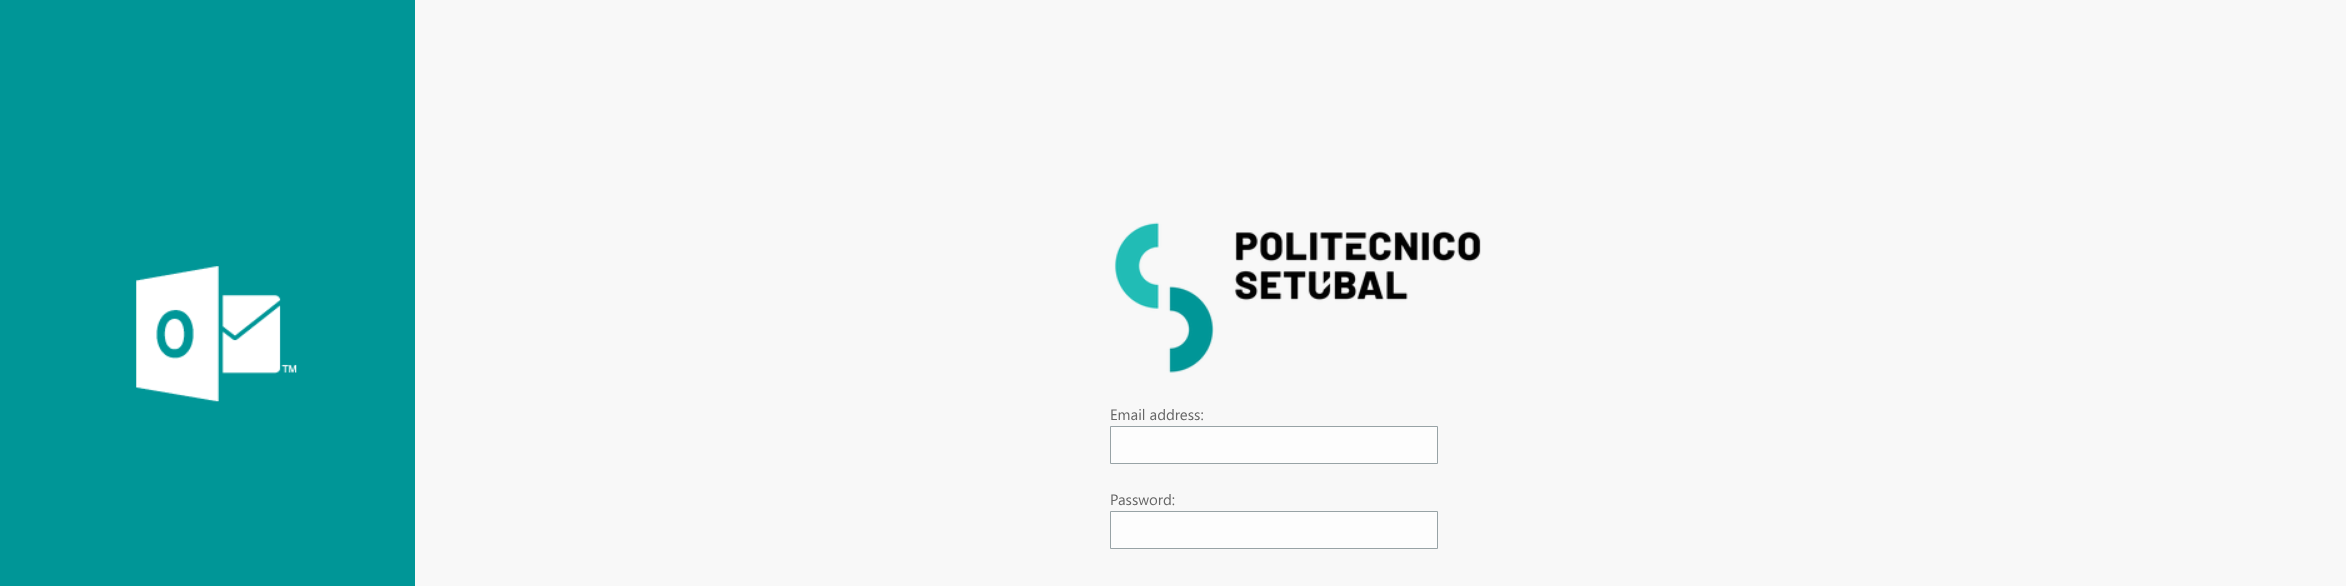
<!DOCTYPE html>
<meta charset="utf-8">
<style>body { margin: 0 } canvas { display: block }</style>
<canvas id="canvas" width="2346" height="586"></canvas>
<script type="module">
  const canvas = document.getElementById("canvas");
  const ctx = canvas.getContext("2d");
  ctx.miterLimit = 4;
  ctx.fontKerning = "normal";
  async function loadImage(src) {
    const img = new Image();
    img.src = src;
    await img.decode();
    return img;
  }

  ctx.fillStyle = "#ffffff";
  ctx.fillRect(0, 0, 2346, 586);
  ctx.drawImage(await loadImage("img1.png"), 415, 0, 1931, 586);
  ctx.fillStyle = "#009697";
  ctx.fillRect(0, 0, 415, 586);
  ctx.drawImage(await loadImage("img2.png"), 136, 266, 161, 136);
  ctx.drawImage(await loadImage("img3.png"), 1114, 222, 367, 151);
  ctx.font = "15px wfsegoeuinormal";
  ctx.fillStyle = "#666666";
  ctx.fillText("Email address:", 1110, 420);
  ctx.fillStyle = "#fdfdfd";
  ctx.beginPath();
  ctx.rect(1110.5, 426.5, 327, 37);
  ctx.fill();
  ctx.strokeStyle = "#98a3a6";
  ctx.stroke();
  ctx.fillStyle = "#666666";
  ctx.fillText("Password:", 1110, 505);
  ctx.fillStyle = "#fdfdfd";
  ctx.beginPath();
  ctx.rect(1110.5, 511.5, 327, 37);
  ctx.fill();
  ctx.stroke();
</script>
